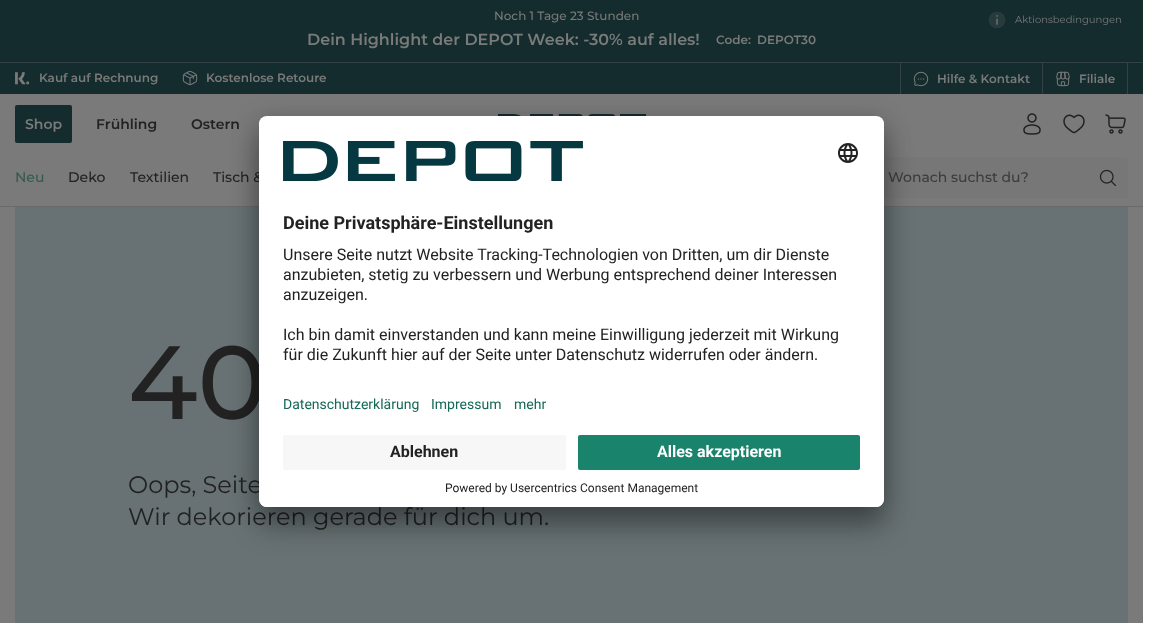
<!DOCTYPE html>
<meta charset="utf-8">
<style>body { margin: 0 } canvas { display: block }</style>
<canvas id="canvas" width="1158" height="623"></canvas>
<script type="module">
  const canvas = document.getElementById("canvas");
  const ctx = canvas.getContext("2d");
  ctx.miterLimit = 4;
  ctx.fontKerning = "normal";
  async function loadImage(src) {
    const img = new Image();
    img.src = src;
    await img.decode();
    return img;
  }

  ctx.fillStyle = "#ffffff";
  ctx.fillRect(0, 0, 1158, 623);
  ctx.fillStyle = "#7a7a7a";
  ctx.fillRect(0, 154, 1143, 469);
  ctx.fillStyle = "#142c2e";
  ctx.fillRect(0, 0, 1143, 62);
  ctx.font = "100 12px Montserrat";
  ctx.fillStyle = "#7a7a7a";
  ctx.fillText("Noch 1 Tage 23 Stunden", 494, 20);
  ctx.font = "100 16px 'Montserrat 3'";
  ctx.fillText("Dein Highlight der DEPOT Week: -30% auf alles!", 307, 45);
  ctx.font = "100 12px 'Montserrat 3'";
  ctx.fillText("Code:", 716, 44);
  ctx.fillText("DEPOT30", 757, 44);
  ctx.drawImage(await loadImage("img1.png"), 988, 11, 18, 18);
  ctx.font = "100 10px 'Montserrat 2'";
  ctx.fillText("Aktionsbedingungen", 1015, 23);
  ctx.fillStyle = "#142c2e";
  ctx.fillRect(0, 63, 1143, 31);
  ctx.fillStyle = "#334345";
  ctx.fillRect(0, 62, 1143, 1);
  ctx.drawImage(await loadImage("img2.png"), 15, 72, 15, 13);
  ctx.font = "100 12px 'Montserrat 3'";
  ctx.fillStyle = "#7a7a7a";
  ctx.fillText("Kauf auf Rechnung", 39, 82);
  ctx.drawImage(await loadImage("img3.png"), 182, 70, 16, 16);
  ctx.fillText("Kostenlose Retoure", 206, 82);
  ctx.fillStyle = "#334345";
  ctx.fillRect(900, 63, 1, 32);
  ctx.drawImage(await loadImage("img4.png"), 913, 71, 16, 16);
  ctx.fillStyle = "#7a7a7a";
  ctx.fillText("Hilfe & Kontakt", 937, 83);
  ctx.fillStyle = "#334345";
  ctx.fillRect(1127, 63, 1, 32);
  ctx.fillRect(1042, 63, 1, 32);
  ctx.drawImage(await loadImage("img5.png"), 1056, 71, 14, 16);
  ctx.fillStyle = "#7a7a7a";
  ctx.fillText("Filiale", 1079, 83);
  ctx.fillRect(0, 94, 1143, 60);
  ctx.drawImage(await loadImage("img6.png"), 498, 114, 148, 2);
  ctx.drawImage(await loadImage("img7.png"), 1023, 113, 18, 22);
  ctx.drawImage(await loadImage("img8.png"), 1063, 114, 22, 20);
  ctx.drawImage(await loadImage("img9.png"), 1105, 114, 21, 20);
  ctx.fillStyle = "#142c2e";
  ctx.beginPath();
  ctx.roundRect(15, 105, 57, 38, 2);
  ctx.fill();
  ctx.font = "100 14px 'Montserrat 3'";
  ctx.fillStyle = "#7a7a7a";
  ctx.fillText("Shop", 25, 129);
  ctx.fillStyle = "#222222";
  ctx.fillText("Frühling", 96, 129);
  ctx.fillText("Ostern", 191, 129);
  ctx.fillStyle = "#6a6a6a";
  ctx.fillRect(0, 206, 1143, 1);
  ctx.font = "100 14px Montserrat";
  ctx.fillStyle = "#345c4b";
  ctx.fillText("Neu", 15, 182);
  ctx.fillStyle = "#222222";
  ctx.fillText("Deko", 68, 182);
  ctx.fillText("Textilien", 130, 182);
  ctx.fillText("Tisch &", 213, 182);
  ctx.fillStyle = "#777777";
  ctx.beginPath();
  ctx.roundRect(878, 157, 250, 41, [2, 2, 0, 0]);
  ctx.fill();
  ctx.fillStyle = "#3c3c3c";
  ctx.fillText("Wonach suchst du?", 888, 182);
  ctx.drawImage(await loadImage("img10.png"), 1099, 169, 18, 18);
  ctx.fillStyle = "#687274";
  ctx.fillRect(15, 207, 1113, 416);
  ctx.font = "100 104px Montserrat";
  ctx.fillStyle = "#222222";
  ctx.fillText("40", 128, 419);
  ctx.font = "100 24px 'Montserrat 2'";
  ctx.fillText("Oops, Seite", 128, 493);
  ctx.fillText("Wir dekorieren gerade für dich um.", 128, 525);
  ctx.fillStyle = "rgba(0, 0, 0, 0.3)";
  ctx.filter = "blur(14px)";
  ctx.beginPath();
  ctx.roundRect(259, 136, 625, 391, 8);
  ctx.fill();
  ctx.filter = "none";
  ctx.fillStyle = "rgba(0, 0, 0, 0.22)";
  ctx.filter = "blur(13px)";
  ctx.beginPath();
  ctx.roundRect(259, 121, 625, 391, 8);
  ctx.fill();
  ctx.filter = "none";
  ctx.fillStyle = "#ffffff";
  ctx.beginPath();
  ctx.roundRect(259, 116, 625, 391, 8);
  ctx.fill();
  ctx.save();
  ctx.beginPath();
  ctx.roundRect(259, 116, 625, 391, 8);
  ctx.clip();
  ctx.beginPath();
  ctx.roundRect(259, 116, 625, 311, [8, 8, 0, 0]);
  ctx.clip();
  ctx.fillRect(259, 117, 625, 310);
  ctx.restore();
  ctx.drawImage(await loadImage("img11.png"), 283, 141, 300, 40);
  ctx.drawImage(await loadImage("img12.png"), 838, 143, 20, 20);
  ctx.font = "bold 18px Roboto";
  ctx.fillStyle = "#222222";
  ctx.fillText("Deine Privatsphäre-Einstellungen", 283, 229);
  ctx.font = "16px Roboto";
  ctx.fillText("Unsere Seite nutzt Website Tracking-Technologien von Dritten, um dir Dienste", 283, 260);
  ctx.fillText("anzubieten, stetig zu verbessern und Werbung entsprechend deiner Interessen", 283, 280);
  ctx.fillText("anzuzeigen.", 283, 300);
  ctx.fillText("Ich bin damit einverstanden und kann meine Einwilligung jederzeit mit Wirkung", 283, 340);
  ctx.fillText("für die Zukunft hier auf der Seite unter Datenschutz widerrufen oder ändern.", 283, 360);
  ctx.font = "14px Roboto";
  ctx.fillStyle = "#156856";
  ctx.fillText("Datenschutzerklärung", 283, 409);
  ctx.fillText("Impressum", 431, 409);
  ctx.fillText("mehr", 514, 409);
  ctx.fillStyle = "#ffffff";
  ctx.beginPath();
  ctx.roundRect(259, 427, 625, 80, [0, 0, 8, 8]);
  ctx.fill();
  ctx.fillStyle = "#f7f7f7";
  ctx.beginPath();
  ctx.roundRect(283, 435, 283, 35, 2);
  ctx.fill();
  ctx.font = "bold 16px Roboto";
  ctx.fillStyle = "#222222";
  ctx.fillText("Ablehnen", 390, 457);
  ctx.fillStyle = "#19836c";
  ctx.beginPath();
  ctx.roundRect(578, 435, 282, 35, 2);
  ctx.fill();
  ctx.fillStyle = "#ffffff";
  ctx.fillText("Alles akzeptieren", 657, 457);
  ctx.font = "12px Roboto";
  ctx.fillStyle = "#222222";
  ctx.fillText("Powered by Usercentrics Consent Management", 445, 492);
</script>
